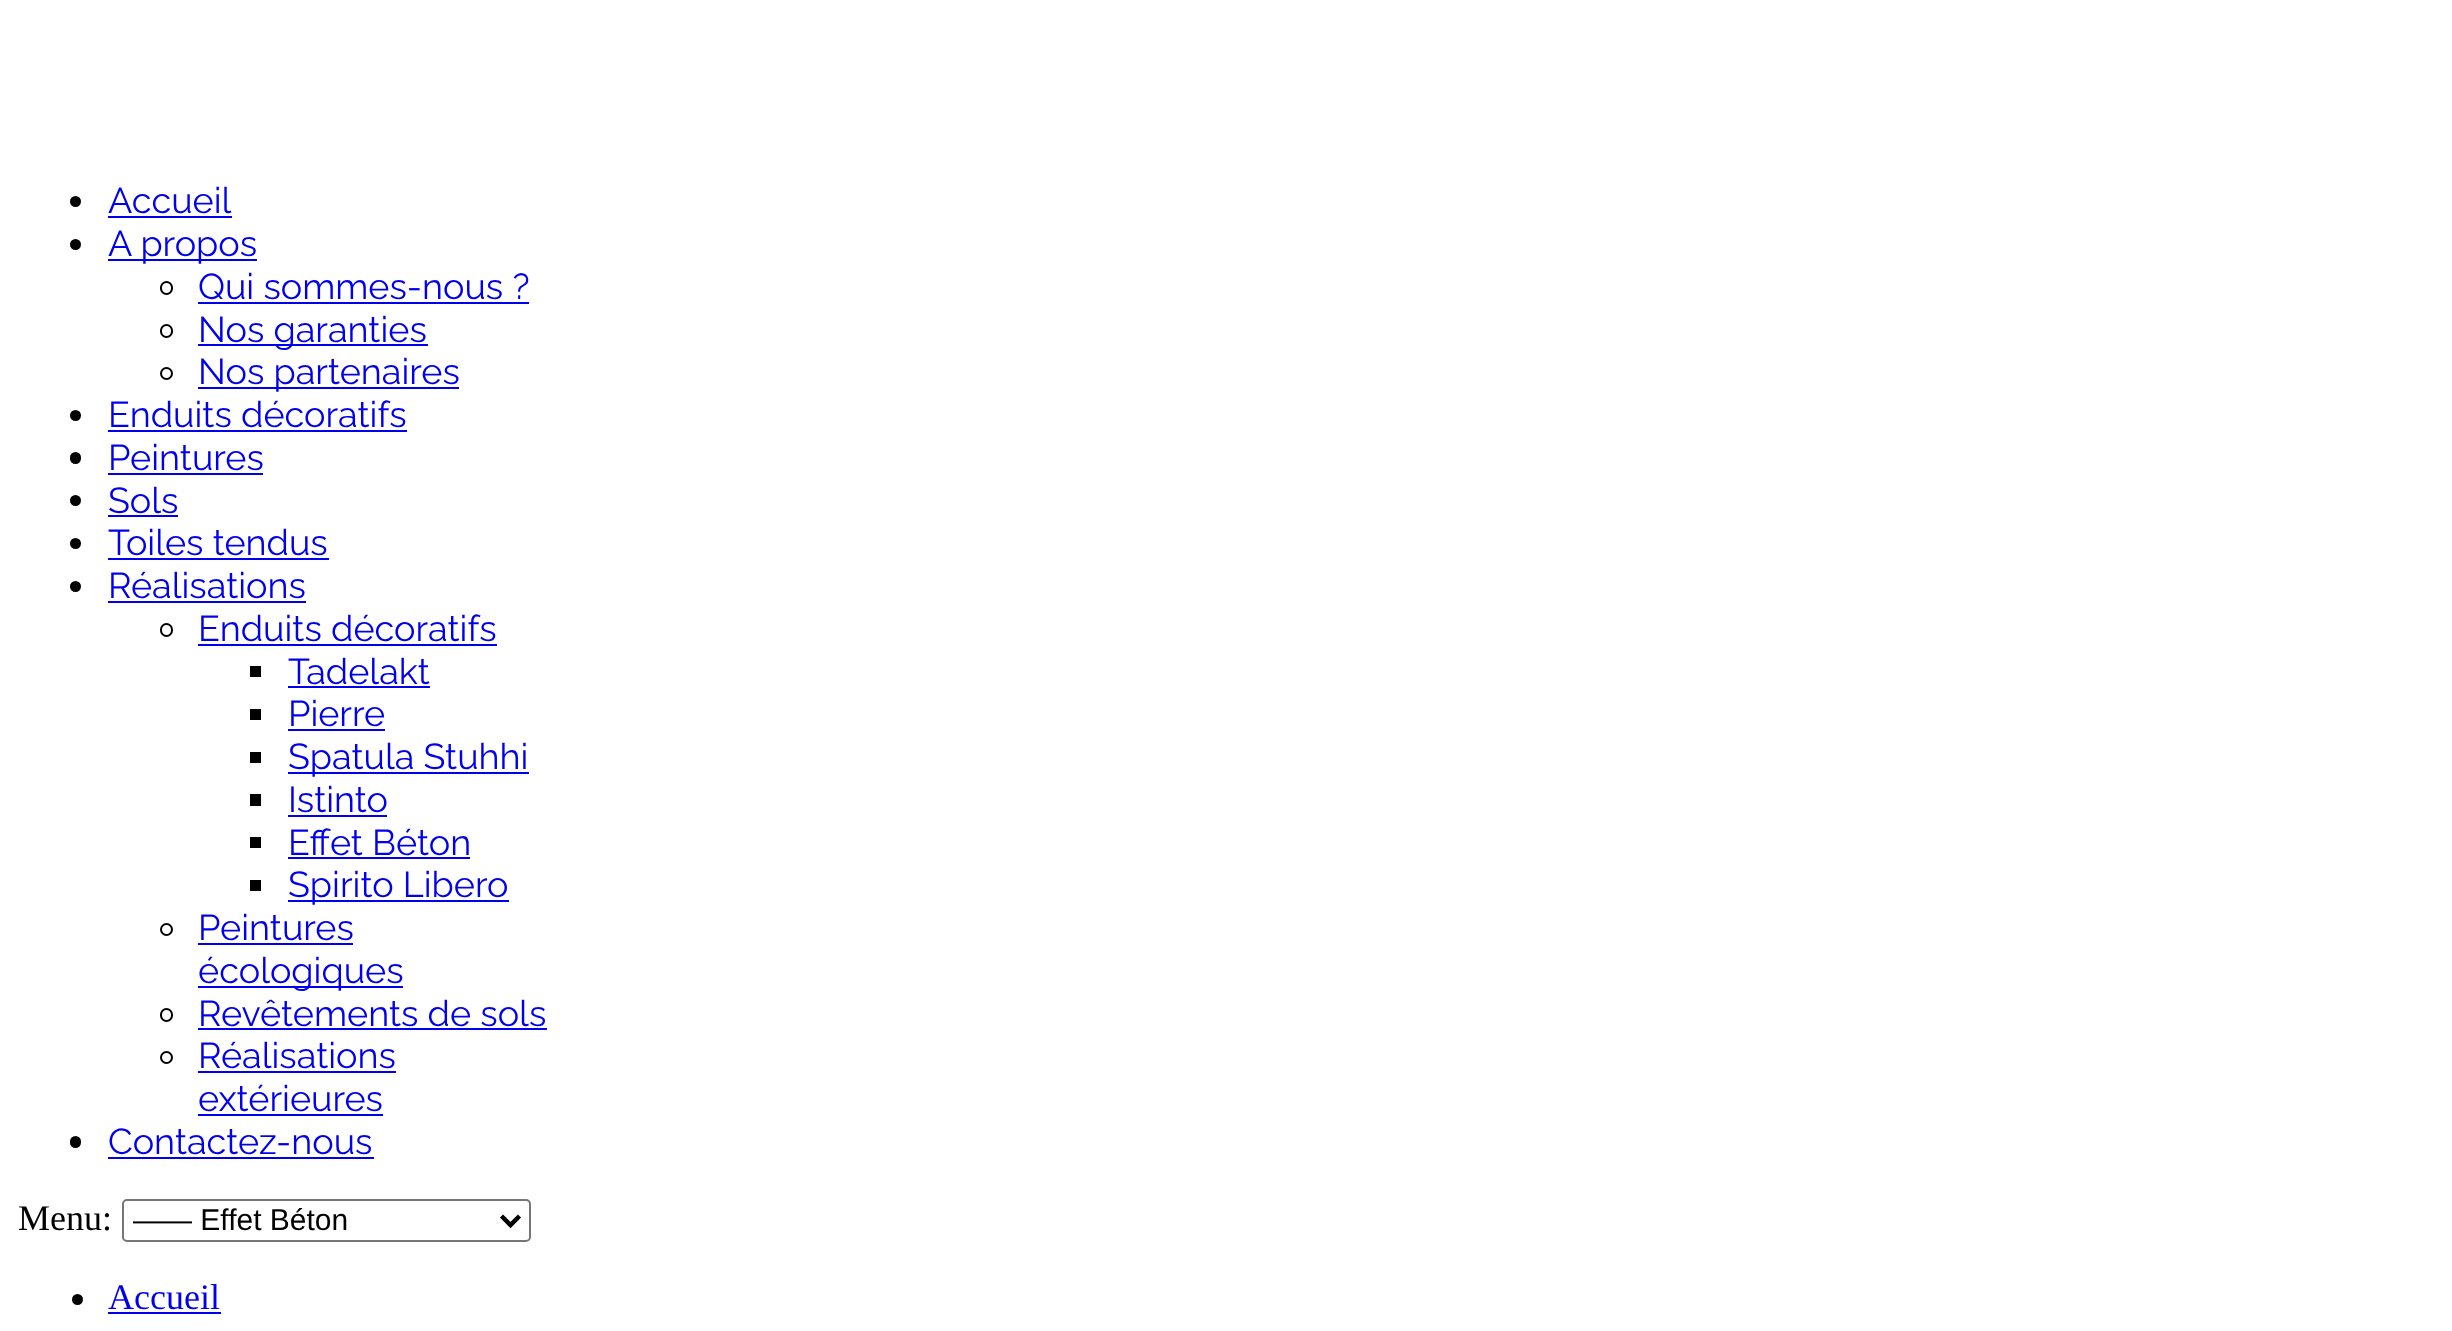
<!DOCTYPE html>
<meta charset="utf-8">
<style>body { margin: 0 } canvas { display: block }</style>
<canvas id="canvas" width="2452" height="1331"></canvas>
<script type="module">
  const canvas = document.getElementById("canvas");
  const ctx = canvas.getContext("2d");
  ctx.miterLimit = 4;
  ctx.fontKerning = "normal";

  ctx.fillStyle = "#ffffff";
  ctx.fillRect(0, 0, 2452, 1331);
  ctx.fillStyle = "#000000";
  ctx.beginPath();
  ctx.arc(75.5, 201.5, 5.5, 0, Math.PI * 2);
  ctx.fill();
  ctx.font = "36px Raleway";
  ctx.fillStyle = "#0000ee";
  ctx.fillText("Accueil", 108, 213);
  ctx.fillRect(108, 216, 124, 2);
  ctx.fillStyle = "#000000";
  ctx.beginPath();
  ctx.arc(75.5, 244.5, 5.5, 0, Math.PI * 2);
  ctx.fill();
  ctx.fillStyle = "#0000ee";
  ctx.fillRect(108, 259, 149, 2);
  ctx.fillText("A propos", 108, 256);
  ctx.beginPath();
  ctx.roundRect(161, 282, 11, 12, 5.5);
  ctx.strokeStyle = "#000000";
  ctx.lineWidth = 2;
  ctx.stroke();
  ctx.fillText("Qui sommes-nous ?", 198, 299);
  ctx.fillRect(198, 302, 331, 2);
  ctx.beginPath();
  ctx.roundRect(161, 325, 11, 12, 5.5);
  ctx.stroke();
  ctx.fillRect(198, 344, 230, 2);
  ctx.fillText("Nos garanties", 198, 342);
  ctx.beginPath();
  ctx.arc(166.5, 373.5, 5.5, 0, Math.PI * 2);
  ctx.stroke();
  ctx.fillRect(198, 387, 261, 2);
  ctx.fillText("Nos partenaires", 198, 384);
  ctx.fillStyle = "#000000";
  ctx.beginPath();
  ctx.arc(75.5, 415.5, 5.5, 0, Math.PI * 2);
  ctx.fill();
  ctx.fillStyle = "#0000ee";
  ctx.fillText("Enduits décoratifs", 108, 427);
  ctx.fillRect(108, 430, 299, 2);
  ctx.fillStyle = "#000000";
  ctx.beginPath();
  ctx.roundRect(70, 452, 11, 12, 5.5);
  ctx.fill();
  ctx.fillStyle = "#0000ee";
  ctx.fillText("Peintures", 108, 470);
  ctx.fillRect(108, 473, 155, 2);
  ctx.fillStyle = "#000000";
  ctx.beginPath();
  ctx.arc(75.5, 500.5, 5.5, 0, Math.PI * 2);
  ctx.fill();
  ctx.fillStyle = "#0000ee";
  ctx.fillText("Sols", 108, 513);
  ctx.fillRect(108, 515, 70, 2);
  ctx.fillStyle = "#000000";
  ctx.beginPath();
  ctx.arc(75.5, 543.5, 5.5, 0, Math.PI * 2);
  ctx.fill();
  ctx.fillStyle = "#0000ee";
  ctx.fillText("Toiles tendus", 108, 555);
  ctx.fillRect(108, 558, 221, 2);
  ctx.fillStyle = "#000000";
  ctx.beginPath();
  ctx.arc(75.5, 586.5, 5.5, 0, Math.PI * 2);
  ctx.fill();
  ctx.fillStyle = "#0000ee";
  ctx.fillText("Réalisations", 108, 598);
  ctx.fillRect(108, 601, 198, 2);
  ctx.beginPath();
  ctx.roundRect(161, 624, 11, 12, 5.5);
  ctx.stroke();
  ctx.fillText("Enduits décoratifs", 198, 641);
  ctx.fillRect(198, 644, 299, 2);
  ctx.fillStyle = "#000000";
  ctx.fillRect(250, 666, 11, 11);
  ctx.fillStyle = "#0000ee";
  ctx.fillText("Tadelakt", 288, 684);
  ctx.fillRect(288, 686, 142, 2);
  ctx.fillStyle = "#000000";
  ctx.fillRect(250, 709, 11, 11);
  ctx.fillStyle = "#0000ee";
  ctx.fillText("Pierre", 288, 726);
  ctx.fillRect(288, 729, 97, 2);
  ctx.fillStyle = "#000000";
  ctx.fillRect(250, 752, 11, 11);
  ctx.fillStyle = "#0000ee";
  ctx.fillRect(288, 772, 241, 2);
  ctx.fillText("Spatula Stuhhi", 288, 769);
  ctx.fillStyle = "#000000";
  ctx.fillRect(250, 794, 11, 12);
  ctx.fillStyle = "#0000ee";
  ctx.fillText("Istinto", 288, 812);
  ctx.fillRect(288, 815, 99, 2);
  ctx.fillStyle = "#000000";
  ctx.fillRect(250, 837, 11, 11);
  ctx.fillStyle = "#0000ee";
  ctx.fillText("Effet Béton", 288, 855);
  ctx.fillRect(288, 857, 182, 2);
  ctx.fillStyle = "#000000";
  ctx.fillRect(250, 880, 11, 11);
  ctx.fillStyle = "#0000ee";
  ctx.fillRect(288, 900, 221, 2);
  ctx.fillText("Spirito Libero", 288, 897);
  ctx.beginPath();
  ctx.arc(166.5, 929.5, 5.5, 0, Math.PI * 2);
  ctx.stroke();
  ctx.fillText("Peintures", 198, 940);
  ctx.fillRect(198, 943, 155, 2);
  ctx.fillRect(198, 986, 205, 2);
  ctx.fillText("écologiques", 198, 983);
  ctx.beginPath();
  ctx.roundRect(161, 1009, 11, 12, 5.5);
  ctx.stroke();
  ctx.fillText("Revêtements de sols", 198, 1026);
  ctx.fillRect(198, 1028, 349, 2);
  ctx.beginPath();
  ctx.arc(166.5, 1057.5, 5.5, 0, Math.PI * 2);
  ctx.stroke();
  ctx.fillText("Réalisations", 198, 1068);
  ctx.fillRect(198, 1071, 198, 2);
  ctx.fillText("extérieures", 198, 1111);
  ctx.fillRect(198, 1114, 185, 2);
  ctx.fillStyle = "#000000";
  ctx.beginPath();
  ctx.roundRect(70, 1136, 11, 12, 5.5);
  ctx.fill();
  ctx.fillStyle = "#0000ee";
  ctx.fillText("Contactez-nous", 108, 1154);
  ctx.fillRect(108, 1157, 266, 2);
  ctx.font = "36px Liberation Serif";
  ctx.fillStyle = "#000000";
  ctx.fillText("Menu:", 18, 1230);
  ctx.beginPath();
  ctx.roundRect(123, 1200, 407, 41, 4);
  ctx.strokeStyle = "#767676";
  ctx.stroke();
  ctx.beginPath();
  ctx.moveTo(501.5, 1216);
  ctx.lineTo(510.5, 1225);
  ctx.lineTo(519.5, 1216);
  ctx.strokeStyle = "#000000";
  ctx.lineWidth = 4.5;
  ctx.stroke();
  ctx.save();
  ctx.beginPath();
  ctx.rect(133, 1202, 360, 38);
  ctx.clip();
  ctx.font = "30px Liberation Sans";
  ctx.fillText("—— Effet Béton", 132, 1230);
  ctx.restore();
  ctx.beginPath();
  ctx.arc(77.5, 1299.5, 5.5, 0, Math.PI * 2);
  ctx.fill();
  ctx.fillStyle = "#0000ee";
  ctx.fillText("Accueil", 108, 1309);
  ctx.fillRect(108, 1312, 113, 2);
</script>
